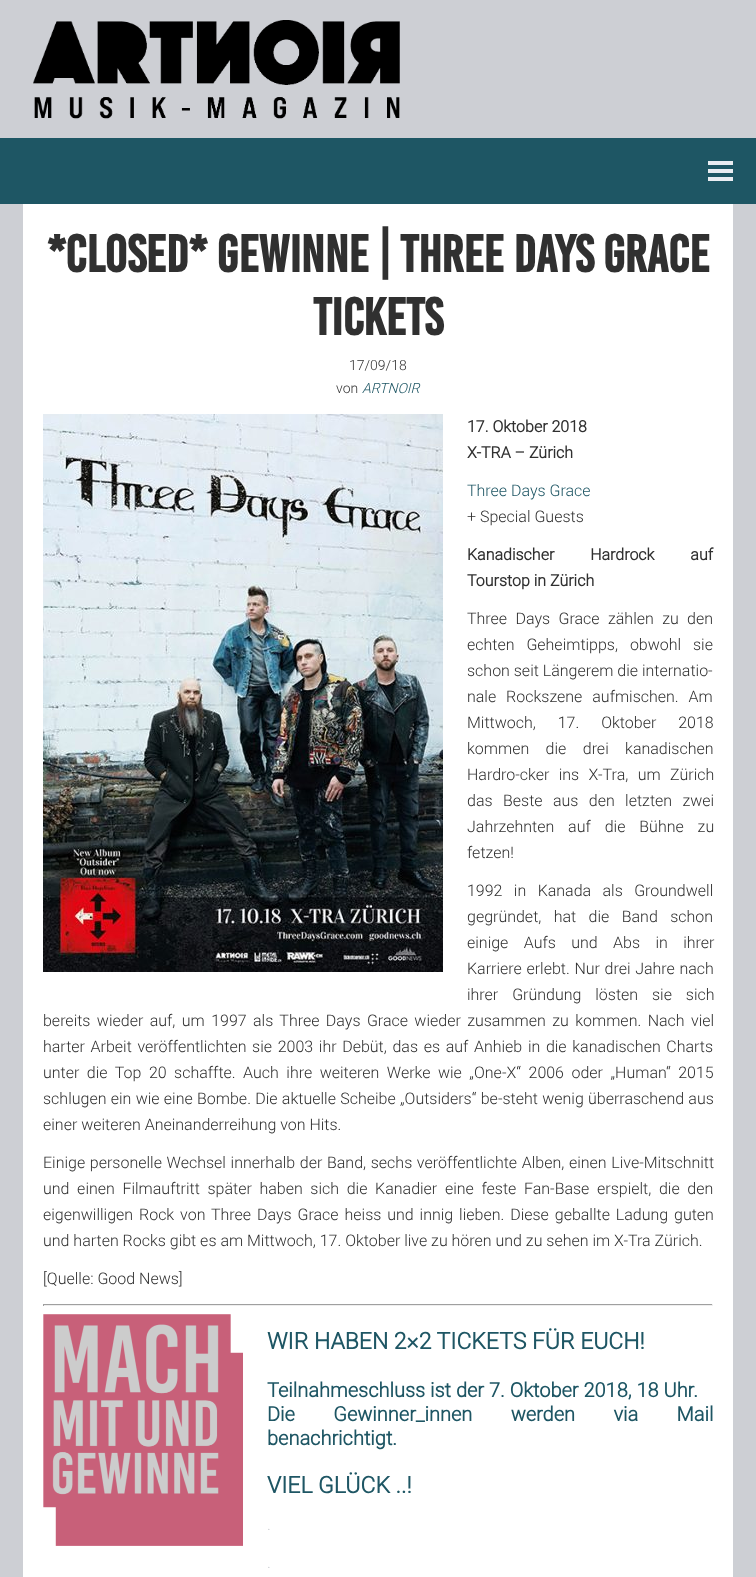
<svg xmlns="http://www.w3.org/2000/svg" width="756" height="1577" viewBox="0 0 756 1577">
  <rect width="100%" height="100%" fill="rgb(205,207,212)"/>
  <image x="33" y="20" width="367" height="99" href="pic1.png"/>
  <rect x="0" y="138" width="756" height="66" fill="rgb(30,86,100)"/>
  <image x="708" y="161" width="25" height="20" href="pic2.png"/>
  <rect x="23" y="204" width="710" height="1373" fill="rgb(255,255,255)"/>
  <g font-family="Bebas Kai" font-size="52" font-weight="bold" fill="rgb(48,48,48)">
    <text x="47" y="272">*closed* Gewinne | THREE DAYS GRACE</text>
    <text x="313" y="335">Tickets</text>
  </g>
  <g font-family="Roboto" font-size="14" font-weight="300" fill="rgb(48,48,48)">
    <text x="349" y="370">17/09/18</text>
    <text x="336" y="393">von</text>
  </g>
  <text x="362" y="393" font-family="Roboto" font-size="14" font-weight="300" font-style="italic" fill="rgb(30,86,100)">ARTNOIR</text>
  <image x="43" y="414" width="400" height="558" href="pic3.png"/>
  <g font-family="Roboto" font-size="16" font-weight="bold" fill="rgb(48,48,48)">
    <text>
      <tspan x="467" y="432">17. Oktober 2018</tspan>
      <tspan x="467" y="458">X-TRA – Zürich</tspan>
    </text>
  </g>
  <text x="467" y="496" font-family="Roboto" font-size="16" font-weight="300" fill="rgb(30,86,100)">Three Days Grace</text>
  <text x="467" y="522" font-family="Roboto" font-size="16" font-weight="300" fill="rgb(48,48,48)">+ Special Guests</text>
  <g font-family="Roboto" font-size="16" font-weight="bold" fill="rgb(48,48,48)">
    <text>
      <tspan x="467" y="560" word-spacing="32">Kanadischer Hardrock auf</tspan>
      <tspan x="467" y="586">Tourstop in Zürich</tspan>
    </text>
  </g>
  <g font-family="Roboto" font-size="16" font-weight="300" fill="rgb(48,48,48)">
    <text>
      <tspan x="467" y="624" word-spacing="4.5">Three Days Grace zählen zu den</tspan>
      <tspan x="467" y="650" word-spacing="8">echten Geheimtipps, obwohl sie</tspan>
      <tspan x="467" y="676">schon seit Längerem die internatio-</tspan>
      <tspan x="467" y="702" word-spacing="6">nale Rockszene aufmischen. Am</tspan>
      <tspan x="467" y="728" word-spacing="18">Mittwoch, 17. Oktober 2018</tspan>
      <tspan x="467" y="754" word-spacing="12.5">kommen die drei kanadischen</tspan>
      <tspan x="467" y="780" word-spacing="5.5">Hardro-cker ins X-Tra, um Zürich</tspan>
      <tspan x="467" y="806" word-spacing="6.5">das Beste aus den letzten zwei</tspan>
      <tspan x="467" y="832" word-spacing="10">Jahrzehnten auf die Bühne zu</tspan>
      <tspan x="467" y="858">fetzen!</tspan>
    </text>
    <text>
      <tspan x="467" y="896" word-spacing="7.5">1992 in Kanada als Groundwell</tspan>
      <tspan x="467" y="922" word-spacing="8.5">gegründet, hat die Band schon</tspan>
      <tspan x="467" y="948" word-spacing="11.5">einige Aufs und Abs in ihrer</tspan>
      <tspan x="467" y="974" word-spacing="0.75">Karriere erlebt. Nur drei Jahre nach</tspan>
      <tspan x="467" y="1000" word-spacing="10">ihrer Gründung lösten sie sich</tspan>
    </text>
    <text>
      <tspan x="43" y="1026" word-spacing="2.5">bereits wieder auf, um 1997 als Three Days Grace wieder zusammen zu kommen. Nach viel</tspan>
      <tspan x="43" y="1052" word-spacing="1.75">harter Arbeit veröffentlichten sie 2003 ihr Debüt, das es auf Anhieb in die kanadischen Charts</tspan>
      <tspan x="43" y="1078" word-spacing="3.6">unter die Top 20 schaffte. Auch ihre weiteren Werke wie „One-X“ 2006 oder „Human“ 2015</tspan>
      <tspan x="43" y="1104" word-spacing="0.4">schlugen ein wie eine Bombe. Die aktuelle Scheibe „Outsiders“ be-steht wenig überraschend aus</tspan>
      <tspan x="43" y="1130">einer weiteren Aneinanderreihung von Hits.</tspan>
    </text>
    <text>
      <tspan x="43" y="1168" word-spacing="0.75">Einige personelle Wechsel innerhalb der Band, sechs veröffentlichte Alben, einen Live-Mitschnitt</tspan>
      <tspan x="43" y="1194" word-spacing="3.75">und einen Filmauftritt später haben sich die Kanadier eine feste Fan-Base erspielt, die den</tspan>
      <tspan x="43" y="1220" word-spacing="2">eigenwilligen Rock von Three Days Grace heiss und innig lieben. Diese geballte Ladung guten</tspan>
      <tspan x="43" y="1246">und harten Rocks gibt es am Mittwoch, 17. Oktober live zu hören und zu sehen im X-Tra Zürich.</tspan>
    </text>
    <text x="43" y="1284">[Quelle: Good News]</text>
  </g>
  <rect x="43" y="1304" width="670" height="1" fill="rgb(159,159,159)"/>
  <rect x="712" y="1304" width="1" height="2" fill="rgb(238,238,238)"/>
  <rect x="43" y="1305" width="670" height="1" fill="rgb(238,238,238)"/>
  <rect x="43" y="1304" width="1" height="2" fill="rgb(159,159,159)"/>
  <image x="43" y="1314" width="200" height="232" href="pic4.png"/>
  <text x="267" y="1349" font-family="Roboto" font-size="23" font-weight="bold" fill="rgb(30,86,100)">WIR HABEN 2×2 TICKETS FÜR EUCH!</text>
  <g font-family="Roboto" font-size="20" font-weight="bold" fill="rgb(30,86,100)">
    <text>
      <tspan x="267" y="1397">Teilnahmeschluss ist der 7. Oktober 2018, 18 Uhr.</tspan>
      <tspan x="267" y="1421" word-spacing="33.5">Die Gewinner_innen werden via Mail</tspan>
      <tspan x="267" y="1445">benachrichtigt.</tspan>
    </text>
  </g>
  <text x="267" y="1493" font-family="Roboto" font-size="23" font-weight="bold" fill="rgb(30,86,100)">VIEL GLÜCK ..!</text>
  <g font-family="Roboto" font-size="16" font-weight="300" fill="rgb(205,207,212)">
    <text x="267" y="1530">.</text>
    <text x="267" y="1568">.</text>
  </g>
</svg>
